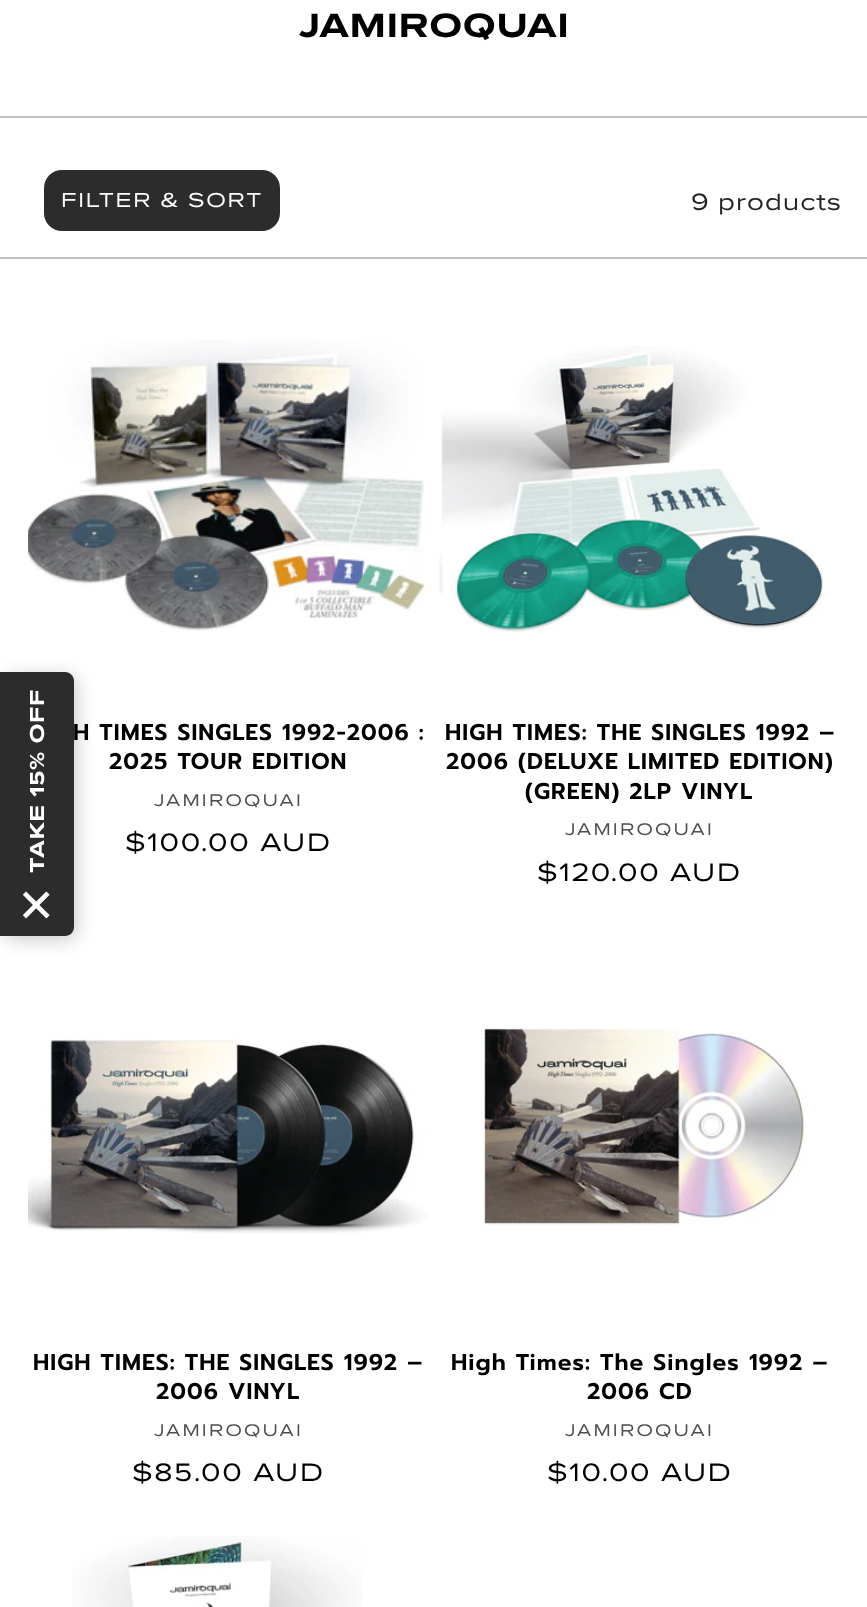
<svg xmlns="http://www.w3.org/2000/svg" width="867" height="1607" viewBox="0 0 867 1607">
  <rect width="100%" height="100%" fill="rgb(255,255,255)"/>
  <rect x="0" y="116" width="867" height="2" fill="rgb(192,192,192)"/>
  <text x="299" y="37" font-family="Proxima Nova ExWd" font-size="35" font-weight="bold" letter-spacing="1.05" fill="rgb(0,0,0)">JAMIROQUAI</text>
  <rect x="44" y="170" width="236" height="61" rx="18" fill="rgb(44,44,44)"/>
  <text x="61" y="207" font-family="Proxima Nova ExWd" font-size="21" letter-spacing="1.75" fill="rgb(255,255,255)">FILTER &amp; SORT</text>
  <text x="691" y="210" font-family="Proxima Nova ExWd" font-size="24.5" letter-spacing="1.05" fill="rgb(33,37,41)">9 products</text>
  <rect x="0" y="257" width="867" height="2" fill="rgb(192,192,192)"/>
  <image x="28" y="340" width="397" height="291" href="pic1.png"/>
  <g font-family="Prompt" font-size="22.75" font-weight="600" letter-spacing="1.05" fill="rgb(0,0,0)">
    <text x="73" y="740">H TIMES SINGLES 1992-2006 :</text>
    <text x="109" y="769">2025 TOUR EDITION</text>
  </g>
  <text x="154" y="806" font-family="Proxima Nova ExWd" font-size="17.5" letter-spacing="2.25" fill="rgb(77,77,77)">JAMIROQUAI</text>
  <text x="125" y="851" font-family="Proxima Nova ExWd" font-size="26.25" letter-spacing="1.75" fill="rgb(0,0,0)">$100.00 AUD</text>
  <image x="439" y="346" width="384" height="288" href="pic2.png"/>
  <g font-family="Prompt" font-size="22.75" font-weight="600" letter-spacing="1.05" fill="rgb(0,0,0)">
    <text x="445" y="740">HIGH TIMES: THE SINGLES 1992 –</text>
    <text x="446" y="769">2006 (DELUXE LIMITED EDITION)</text>
    <text x="525" y="799">(GREEN) 2LP VINYL</text>
  </g>
  <text x="565" y="835" font-family="Proxima Nova ExWd" font-size="17.5" letter-spacing="2.25" fill="rgb(77,77,77)">JAMIROQUAI</text>
  <text x="537" y="881" font-family="Proxima Nova ExWd" font-size="26.25" letter-spacing="1.75" fill="rgb(0,0,0)">$120.00 AUD</text>
  <image x="28" y="1038" width="400" height="196" href="pic3.png"/>
  <g font-family="Prompt" font-size="22.75" font-weight="600" letter-spacing="1.05" fill="rgb(0,0,0)">
    <text x="33" y="1370">HIGH TIMES: THE SINGLES 1992 –</text>
    <text x="156" y="1399">2006 VINYL</text>
  </g>
  <text x="154" y="1436" font-family="Proxima Nova ExWd" font-size="17.5" letter-spacing="2.25" fill="rgb(77,77,77)">JAMIROQUAI</text>
  <text x="132" y="1481" font-family="Proxima Nova ExWd" font-size="26.25" letter-spacing="1.75" fill="rgb(0,0,0)">$85.00 AUD</text>
  <image x="483" y="1028" width="322" height="198" href="pic4.png"/>
  <g font-family="Prompt" font-size="22.75" font-weight="600" letter-spacing="1.05" fill="rgb(0,0,0)">
    <text x="451" y="1370">High Times: The Singles 1992 –</text>
    <text x="587" y="1399">2006 CD</text>
  </g>
  <text x="565" y="1436" font-family="Proxima Nova ExWd" font-size="17.5" letter-spacing="2.25" fill="rgb(77,77,77)">JAMIROQUAI</text>
  <text x="547" y="1481" font-family="Proxima Nova ExWd" font-size="26.25" letter-spacing="1.75" fill="rgb(0,0,0)">$10.00 AUD</text>
  <image x="72" y="1536" width="291" height="71" href="pic5.png"/>
  <rect x="4" y="676" width="73" height="264" rx="9" fill="rgba(0,0,0,0.2)" filter="blur(9px)"/>
  <path d="M0 672H65C70 672 74 676 74 681V927C74 932 70 936 65 936H0Z" fill="rgb(44,44,44)"/>
  <text x="44" y="873" transform="rotate(-90 44 873)" font-family="Proxima Nova ExWd" font-size="21" font-weight="bold" letter-spacing="1.05" fill="rgb(255,255,255)">TAKE 15% OFF</text>
  <image x="23" y="891" width="27" height="28" href="pic6.png"/>
</svg>
